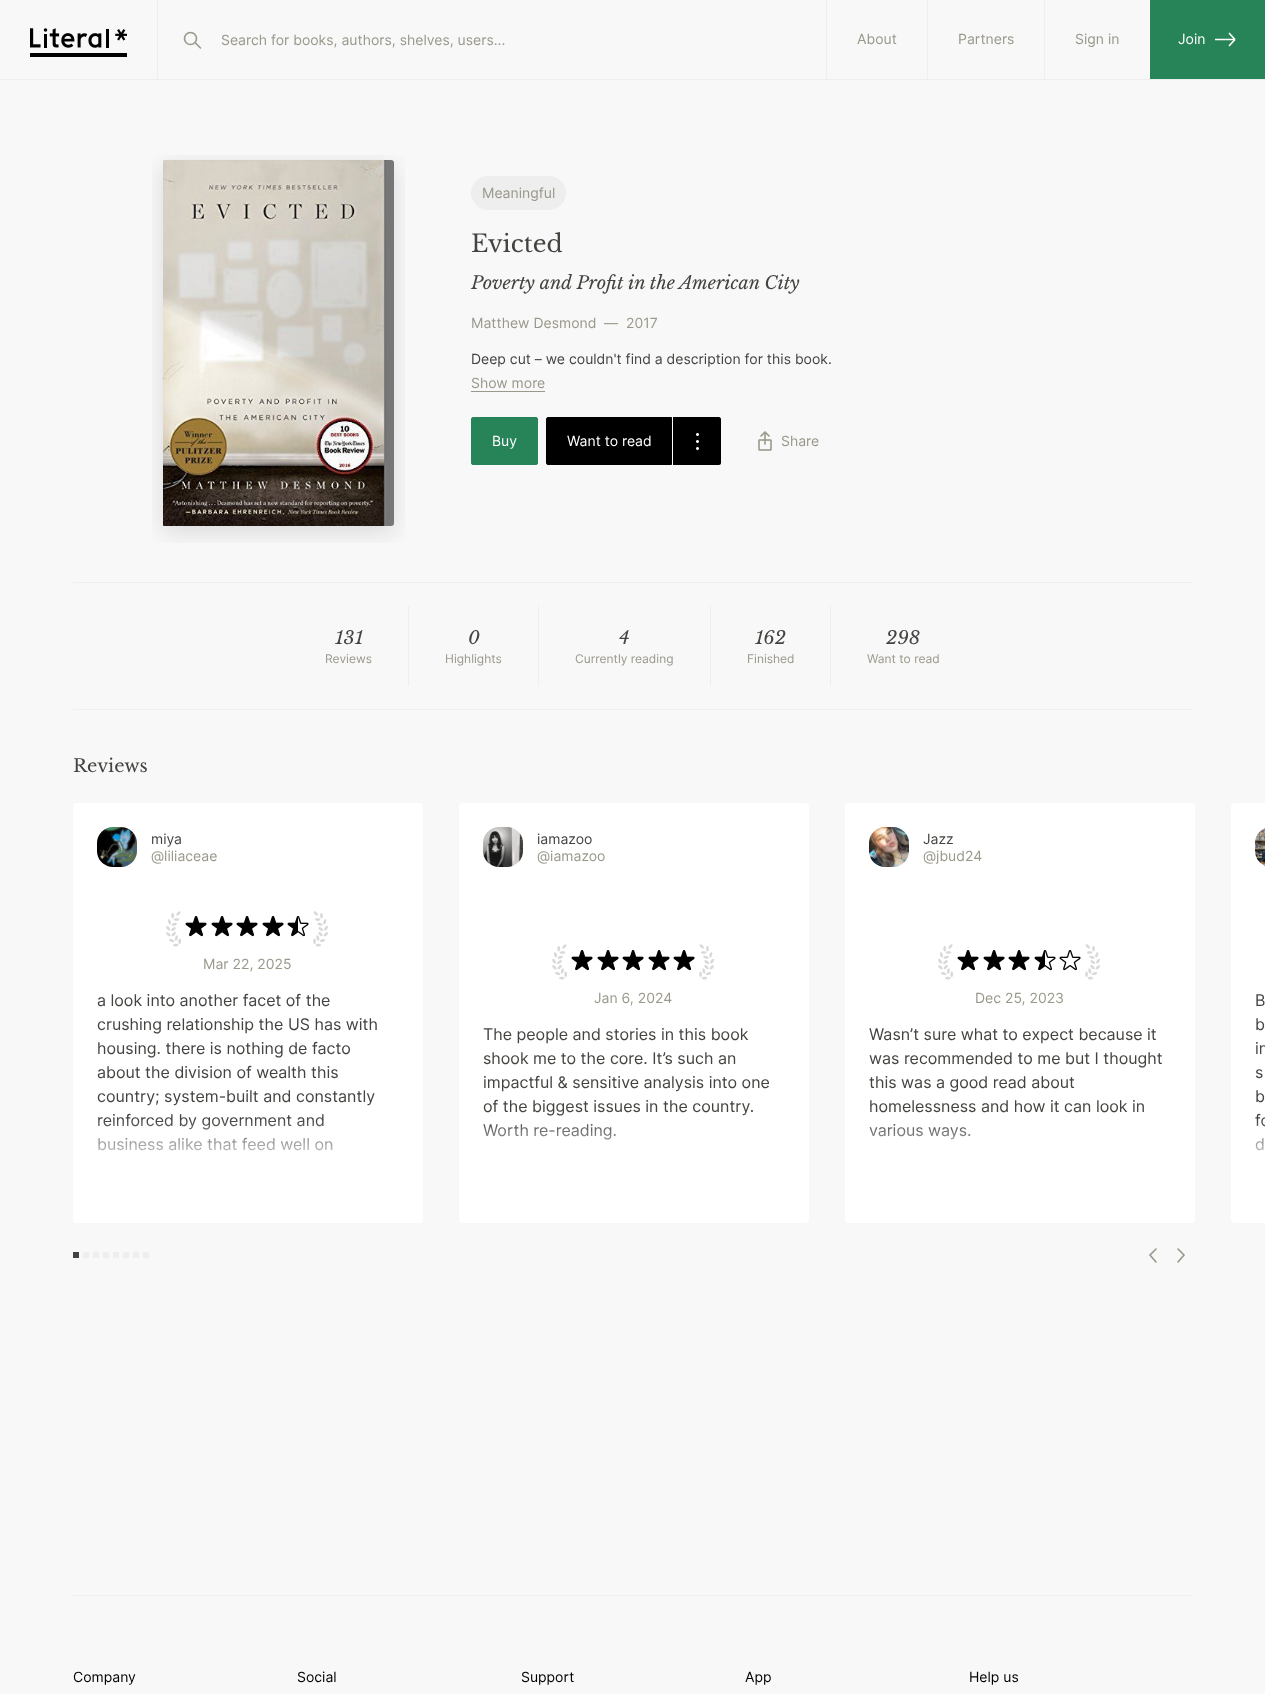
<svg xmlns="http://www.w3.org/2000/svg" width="1265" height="1694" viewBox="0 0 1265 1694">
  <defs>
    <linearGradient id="g1" gradientUnits="userSpaceOnUse" x1="248" y1="1119" x2="248" y2="1199"><stop offset="0" stop-color="rgb(255,255,255)" stop-opacity="0"/><stop offset="0.5" stop-color="rgb(255,255,255)" stop-opacity="0.8"/><stop offset="1" stop-color="rgb(255,255,255)"/></linearGradient>
    <linearGradient id="g2" gradientUnits="userSpaceOnUse" x1="634" y1="1119" x2="634" y2="1199"><stop offset="0" stop-color="rgb(255,255,255)" stop-opacity="0"/><stop offset="0.5" stop-color="rgb(255,255,255)" stop-opacity="0.8"/><stop offset="1" stop-color="rgb(255,255,255)"/></linearGradient>
    <linearGradient id="g3" gradientUnits="userSpaceOnUse" x1="1020" y1="1119" x2="1020" y2="1199"><stop offset="0" stop-color="rgb(255,255,255)" stop-opacity="0"/><stop offset="0.5" stop-color="rgb(255,255,255)" stop-opacity="0.8"/><stop offset="1" stop-color="rgb(255,255,255)"/></linearGradient>
    <linearGradient id="g4" gradientUnits="userSpaceOnUse" x1="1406" y1="1119" x2="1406" y2="1199"><stop offset="0" stop-color="rgb(255,255,255)" stop-opacity="0"/><stop offset="0.5" stop-color="rgb(255,255,255)" stop-opacity="0.8"/><stop offset="1" stop-color="rgb(255,255,255)"/></linearGradient>
  </defs>
  <rect width="100%" height="100%" fill="rgb(248,248,248)"/>
  <rect x="0" y="79" width="1265" height="1" fill="rgb(238,238,238)"/>
  <rect x="157" y="0" width="1" height="79" fill="rgb(238,238,238)"/>
  <image x="30" y="28" width="97" height="29" href="pic1.png"/>
  <circle cx="190.5" cy="38.5" r="6" fill="none" stroke="rgb(154,152,139)" stroke-width="1.6"/>
  <path d="M195.5 43L200.5 48" fill="none" stroke="rgb(154,152,139)" stroke-width="1.6" stroke-linecap="round"/>
  <text x="221" y="45" font-family="Inter" font-size="14" fill="rgb(154,152,139)">Search for books, authors, shelves, users...</text>
  <rect x="826" y="0" width="1" height="79" fill="rgb(238,238,238)"/>
  <text x="857" y="44" font-family="Inter" font-size="14" fill="rgb(154,152,139)">About</text>
  <rect x="927" y="0" width="1" height="79" fill="rgb(238,238,238)"/>
  <text x="958" y="44" font-family="Inter" font-size="14" fill="rgb(154,152,139)">Partners</text>
  <rect x="1044" y="0" width="1" height="79" fill="rgb(238,238,238)"/>
  <text x="1075" y="44" font-family="Inter" font-size="14" fill="rgb(154,152,139)">Sign in</text>
  <rect x="1150" y="0" width="115" height="79" fill="rgb(39,132,88)"/>
  <text x="1178" y="44" font-family="Inter" font-size="14" fill="rgb(255,255,255)">Join</text>
  <path d="M1215 39.5H1235M1235 39.5L1229 46M1235 39.5L1229 33" fill="none" stroke="rgb(255,255,255)" stroke-width="1.6"/>
  <image x="152" y="155" width="253" height="388" href="pic2.png"/>
  <rect x="471.5" y="176.5" width="94" height="33" rx="16.5" fill="rgb(238,238,238)" stroke="rgb(238,238,238)"/>
  <text x="482" y="198" font-family="Inter" font-size="14" fill="rgb(154,152,139)">Meaningful</text>
  <text x="471" y="252" font-family="Libre Baskerville" font-size="24" fill="rgb(68,67,64)">Evicted</text>
  <text x="471" y="289" font-family="Libre Baskerville" font-size="18" font-style="italic" fill="rgb(68,67,64)">Poverty and Profit in the American City</text>
  <g font-family="Inter" font-size="14" fill="rgb(154,152,139)">
    <text x="471" y="328">Matthew Desmond</text>
    <text x="604" y="328">—</text>
    <text x="626" y="328">2017</text>
  </g>
  <text x="471" y="364" font-family="Inter" font-size="14" fill="rgb(68,67,64)">Deep cut – we couldn't find a description for this book.</text>
  <rect x="471" y="391" width="74" height="1" fill="rgb(154,152,139)"/>
  <text x="471" y="388" font-family="Inter" font-size="14" fill="rgb(154,152,139)">Show more</text>
  <rect x="471.5" y="417.5" width="66" height="47" rx="1.5" fill="rgb(39,132,88)" stroke="rgb(39,132,88)"/>
  <text x="492" y="446" font-family="Inter" font-size="14" fill="rgb(255,255,255)">Buy</text>
  <path d="M548 417.5H671.5V464.5H548C547 464.5 546.5 464 546.5 463V419C546.5 418 547 417.5 548 417.5Z" fill="rgb(0,0,0)" stroke="rgb(0,0,0)"/>
  <text x="567" y="446" font-family="Inter" font-size="14" fill="rgb(255,255,255)">Want to read</text>
  <path d="M672 417H719C720 417 721 418 721 419V463C721 464 720 465 719 465H672Z" fill="rgb(0,0,0)"/>
  <rect x="672" y="417" width="1" height="48" fill="rgb(255,255,255)"/>
  <image x="696" y="433" width="3" height="17" href="pic3.png"/>
  <image x="758" y="431" width="14" height="20" href="pic4.png"/>
  <text x="781" y="446" font-family="Inter" font-size="14" fill="rgb(154,152,139)">Share</text>
  <rect x="73" y="582" width="1120" height="1" fill="rgb(238,238,238)"/>
  <rect x="73" y="709" width="1120" height="1" fill="rgb(238,238,238)"/>
  <text x="335" y="644" font-family="Libre Baskerville" font-size="18" font-style="italic" fill="rgb(68,67,64)">131</text>
  <text x="325" y="663" font-family="Inter" font-size="12" fill="rgb(154,152,139)">Reviews</text>
  <rect x="408" y="606" width="1" height="80" fill="rgb(238,238,238)"/>
  <text x="468" y="644" font-family="Libre Baskerville" font-size="18" font-style="italic" fill="rgb(68,67,64)">0</text>
  <text x="445" y="663" font-family="Inter" font-size="12" fill="rgb(154,152,139)">Highlights</text>
  <rect x="538" y="606" width="1" height="80" fill="rgb(238,238,238)"/>
  <text x="619" y="644" font-family="Libre Baskerville" font-size="18" font-style="italic" fill="rgb(68,67,64)">4</text>
  <text x="575" y="663" font-family="Inter" font-size="12" fill="rgb(154,152,139)">Currently reading</text>
  <rect x="710" y="606" width="1" height="80" fill="rgb(238,238,238)"/>
  <text x="755" y="644" font-family="Libre Baskerville" font-size="18" font-style="italic" fill="rgb(68,67,64)">162</text>
  <text x="747" y="663" font-family="Inter" font-size="12" fill="rgb(154,152,139)">Finished</text>
  <rect x="830" y="606" width="1" height="80" fill="rgb(238,238,238)"/>
  <text x="886" y="644" font-family="Libre Baskerville" font-size="18" font-style="italic" fill="rgb(68,67,64)">298</text>
  <text x="867" y="663" font-family="Inter" font-size="12" fill="rgb(154,152,139)">Want to read</text>
  <text x="73" y="772" font-family="Libre Baskerville" font-size="18" fill="rgb(68,67,64)">Reviews</text>
  <rect x="73" y="803" width="350" height="420" rx="4" fill="rgb(255,255,255)"/>
  <image x="97" y="827" width="40" height="40" href="pic5.png"/>
  <text x="151" y="844" font-family="Inter" font-size="14" fill="rgb(68,67,64)">miya</text>
  <text x="151" y="861" font-family="Inter" font-size="14" fill="rgb(154,152,139)">@liliaceae</text>
  <image x="166" y="911" width="15" height="36" href="pic6.png"/>
  <image x="185" y="916" width="22" height="21" href="pic7.png"/>
  <image x="211" y="916" width="22" height="21" href="pic7.png"/>
  <image x="236" y="916" width="22" height="21" href="pic7.png"/>
  <image x="262" y="916" width="22" height="21" href="pic7.png"/>
  <image x="287" y="916" width="22" height="21" href="pic8.png"/>
  <image x="313" y="911" width="15" height="36" href="pic9.png"/>
  <text x="203" y="969" font-family="Inter" font-size="14" fill="rgb(154,152,139)">Mar 22, 2025</text>
  <g font-family="Inter" font-size="16" fill="rgb(68,67,64)">
    <text>
      <tspan x="97" y="1006">a look into another facet of the</tspan>
      <tspan x="97" y="1030">crushing relationship the US has with</tspan>
      <tspan x="97" y="1054">housing. there is nothing de facto</tspan>
      <tspan x="97" y="1078">about the division of wealth this</tspan>
      <tspan x="97" y="1102">country; system-built and constantly</tspan>
      <tspan x="97" y="1126">reinforced by government and</tspan>
      <tspan x="97" y="1150">business alike that feed well on</tspan>
    </text>
  </g>
  <rect x="97" y="1120" width="235" height="31" fill="url(#g1)"/>
  <rect x="459" y="803" width="350" height="420" rx="4" fill="rgb(255,255,255)"/>
  <image x="483" y="827" width="40" height="40" href="pic10.png"/>
  <text x="537" y="844" font-family="Inter" font-size="14" fill="rgb(68,67,64)">iamazoo</text>
  <text x="537" y="861" font-family="Inter" font-size="14" fill="rgb(154,152,139)">@iamazoo</text>
  <image x="552" y="944" width="15" height="36" href="pic6.png"/>
  <image x="571" y="950" width="22" height="21" href="pic7.png"/>
  <image x="597" y="950" width="22" height="21" href="pic7.png"/>
  <image x="622" y="950" width="22" height="21" href="pic7.png"/>
  <image x="648" y="950" width="22" height="21" href="pic7.png"/>
  <image x="673" y="950" width="22" height="21" href="pic7.png"/>
  <image x="699" y="944" width="15" height="36" href="pic9.png"/>
  <text x="594" y="1003" font-family="Inter" font-size="14" fill="rgb(154,152,139)">Jan 6, 2024</text>
  <g font-family="Inter" font-size="16" fill="rgb(68,67,64)">
    <text>
      <tspan x="483" y="1040">The people and stories in this book</tspan>
      <tspan x="483" y="1064">shook me to the core. It’s such an</tspan>
      <tspan x="483" y="1088">impactful &amp; sensitive analysis into one</tspan>
      <tspan x="483" y="1112">of the biggest issues in the country.</tspan>
      <tspan x="483" y="1136">Worth re-reading.</tspan>
    </text>
  </g>
  <rect x="483" y="1124" width="133" height="16" fill="url(#g2)"/>
  <rect x="845" y="803" width="350" height="420" rx="4" fill="rgb(255,255,255)"/>
  <image x="869" y="827" width="40" height="40" href="pic11.png"/>
  <text x="923" y="844" font-family="Inter" font-size="14" fill="rgb(68,67,64)">Jazz</text>
  <text x="923" y="861" font-family="Inter" font-size="14" fill="rgb(154,152,139)">@jbud24</text>
  <image x="938" y="944" width="15" height="36" href="pic6.png"/>
  <image x="957" y="950" width="22" height="21" href="pic7.png"/>
  <image x="983" y="950" width="22" height="21" href="pic7.png"/>
  <image x="1008" y="950" width="22" height="21" href="pic7.png"/>
  <image x="1034" y="950" width="22" height="21" href="pic8.png"/>
  <image x="1059" y="950" width="22" height="21" href="pic12.png"/>
  <image x="1085" y="944" width="15" height="36" href="pic9.png"/>
  <text x="975" y="1003" font-family="Inter" font-size="14" fill="rgb(154,152,139)">Dec 25, 2023</text>
  <g font-family="Inter" font-size="16" fill="rgb(68,67,64)">
    <text>
      <tspan x="869" y="1040">Wasn’t sure what to expect because it</tspan>
      <tspan x="869" y="1064">was recommended to me but I thought</tspan>
      <tspan x="869" y="1088">this was a good read about</tspan>
      <tspan x="869" y="1112">homelessness and how it can look in</tspan>
      <tspan x="869" y="1136">various ways.</tspan>
    </text>
  </g>
  <rect x="869" y="1124" width="101" height="16" fill="url(#g3)"/>
  <path d="M1235 803H1265V1223H1235C1233 1223 1231 1221 1231 1219V807C1231 805 1233 803 1235 803Z" fill="rgb(255,255,255)"/>
  <image x="1255" y="828" width="10" height="38" href="pic13.png"/>
  <g font-family="Inter" font-size="16" fill="rgb(68,67,64)">
    <text>
      <tspan x="1255" y="1006">B</tspan>
      <tspan x="1255" y="1030">b</tspan>
      <tspan x="1255" y="1054">in</tspan>
      <tspan x="1255" y="1078">s</tspan>
      <tspan x="1255" y="1102">b</tspan>
      <tspan x="1255" y="1126">fo</tspan>
      <tspan x="1255" y="1150">d</tspan>
    </text>
  </g>
  <rect x="1255" y="1120" width="10" height="31" fill="url(#g4)"/>
  <rect x="73" y="1252" width="6" height="6" fill="rgb(68,67,64)"/>
  <rect x="83" y="1252" width="6" height="6" fill="rgb(238,238,238)"/>
  <rect x="93" y="1252" width="6" height="6" fill="rgb(238,238,238)"/>
  <rect x="103" y="1252" width="6" height="6" fill="rgb(238,238,238)"/>
  <rect x="113" y="1252" width="6" height="6" fill="rgb(238,238,238)"/>
  <rect x="123" y="1252" width="6" height="6" fill="rgb(238,238,238)"/>
  <rect x="133" y="1252" width="6" height="6" fill="rgb(238,238,238)"/>
  <rect x="143" y="1252" width="6" height="6" fill="rgb(238,238,238)"/>
  <path d="M1156 1262L1150 1255L1156 1249M1178 1262L1184 1255L1178 1249" fill="none" stroke="rgb(154,152,139)" stroke-width="1.6" stroke-linecap="round"/>
  <rect x="73" y="1595" width="1120" height="1" fill="rgb(238,238,238)"/>
  <g font-family="Inter" font-size="14" fill="rgb(0,0,0)">
    <text x="73" y="1682">Company</text>
    <text x="297" y="1682">Social</text>
    <text x="521" y="1682">Support</text>
    <text x="745" y="1682">App</text>
    <text x="969" y="1682">Help us</text>
  </g>
</svg>
